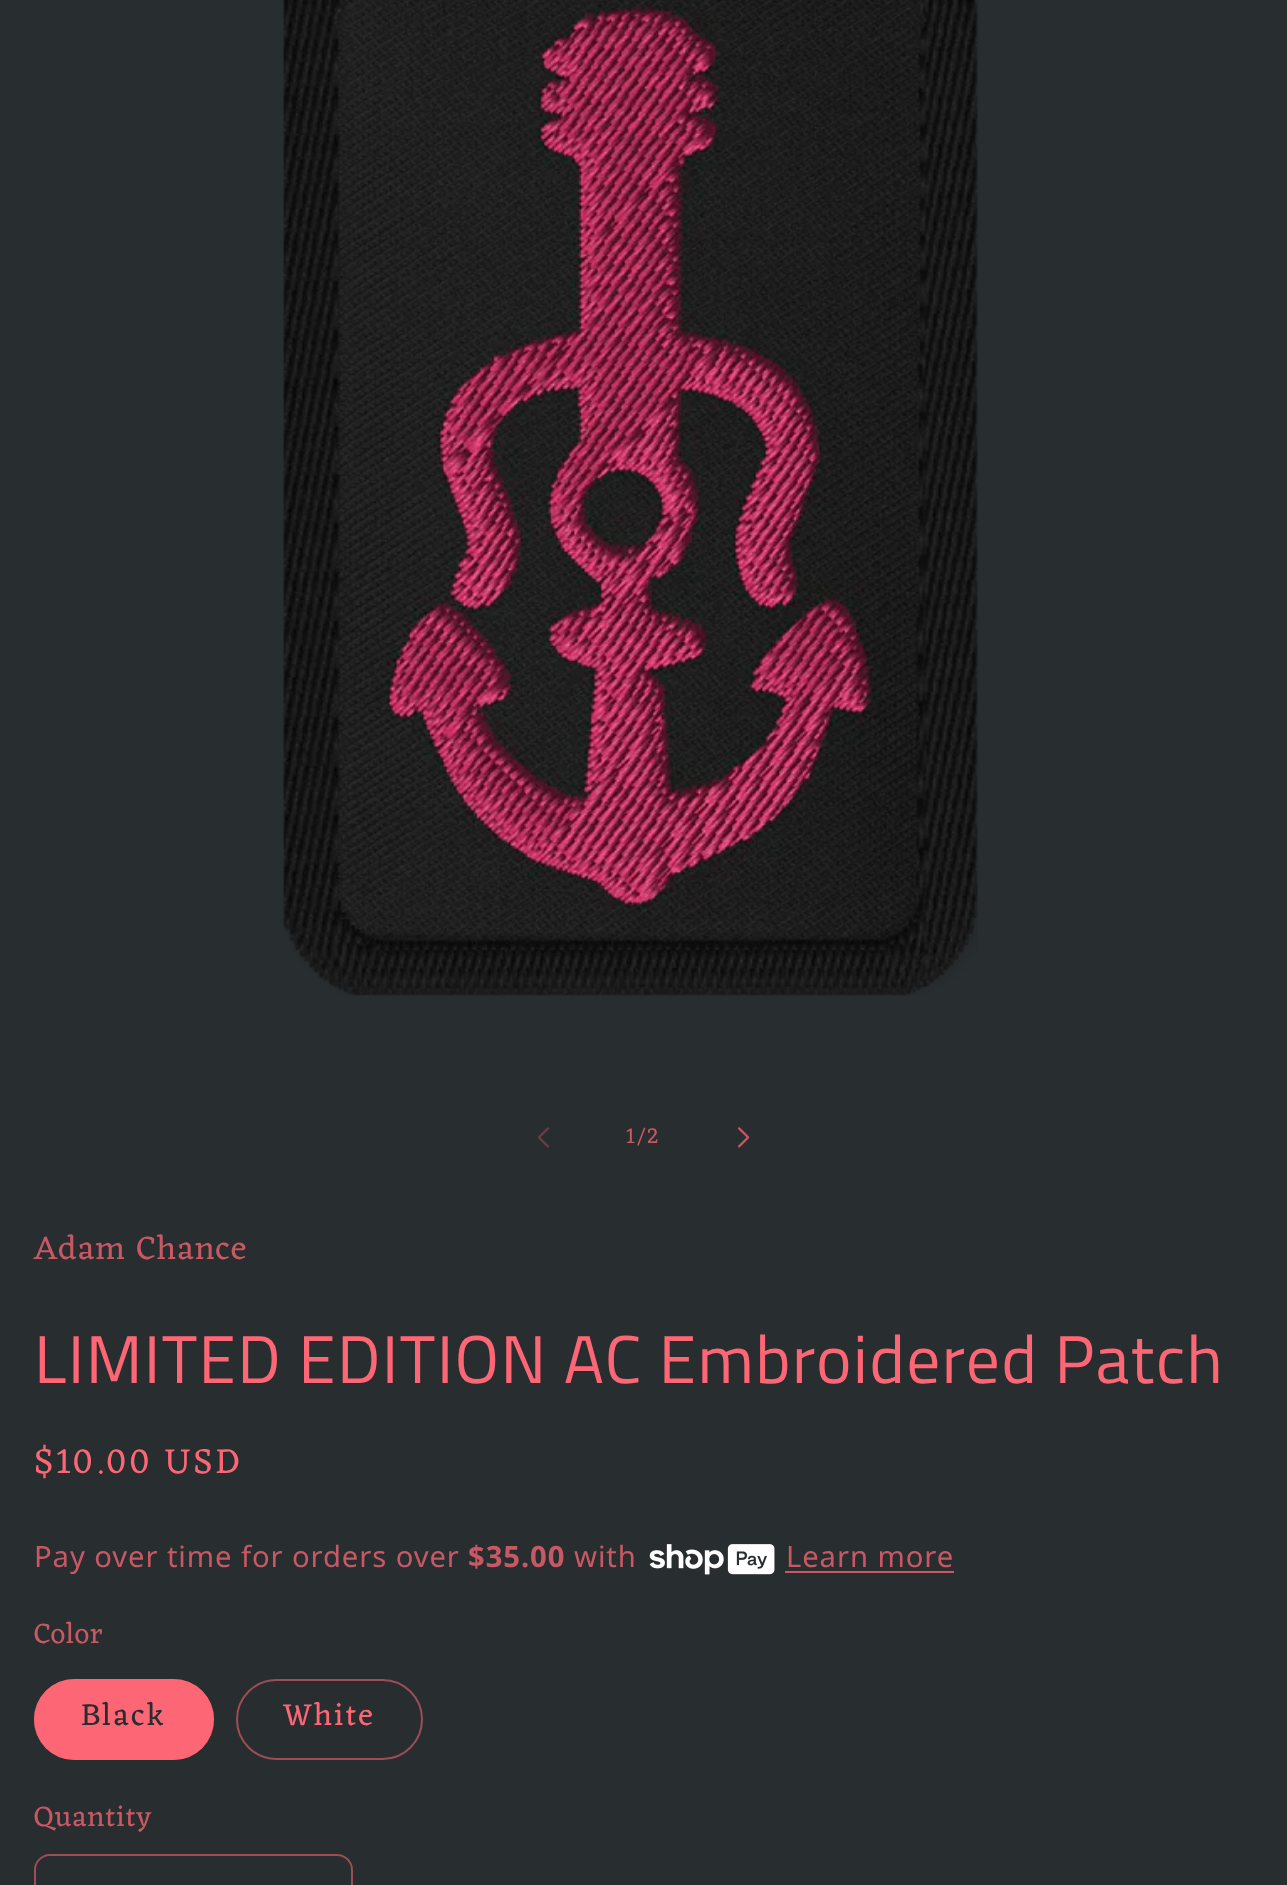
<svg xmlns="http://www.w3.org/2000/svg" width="1287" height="1885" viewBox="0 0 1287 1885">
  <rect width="100%" height="100%" fill="rgb(40,45,48)"/>
  <image x="283" y="0" width="695" height="996" href="pic1.png"/>
  <image x="538" y="1127" width="11" height="21" href="pic2.png"/>
  <text x="626" y="1143" font-family="Eczar" font-size="22" letter-spacing="1.5" fill="rgb(200,89,100)">1/2</text>
  <image x="738" y="1127" width="12" height="21" href="pic3.png"/>
  <text x="34" y="1259" font-family="Eczar" font-size="33.75" letter-spacing="1.35" fill="rgb(200,89,100)">Adam Chance</text>
  <text x="34" y="1383" font-family="Titillium Web" font-size="67.5" letter-spacing="1.35" fill="rgb(253,103,117)">LIMITED EDITION AC Embroidered Patch</text>
  <text x="34" y="1473" font-family="Eczar" font-size="36" letter-spacing="3" fill="rgb(253,103,117)">$10.00 USD</text>
  <text x="34" y="1567" font-family="Noto Sans" font-size="29.25" letter-spacing="0.9" fill="rgb(200,89,100)">Pay over time for orders over</text>
  <text x="468" y="1567" font-family="Noto Sans" font-size="29.25" font-weight="bold" letter-spacing="0.9" fill="rgb(200,89,100)">$35.00</text>
  <text x="574" y="1567" font-family="Noto Sans" font-size="29.25" letter-spacing="0.9" fill="rgb(200,89,100)">with</text>
  <image x="649" y="1544" width="126" height="31" href="pic4.png"/>
  <text x="786" y="1567" font-family="Noto Sans" font-size="29.25" letter-spacing="0.9" fill="rgb(200,89,100)">Learn more</text>
  <rect x="785" y="1571" width="169" height="2" fill="rgb(200,89,100)"/>
  <text x="34" y="1643" font-family="Eczar" font-size="29.25" letter-spacing="0.9" fill="rgb(200,89,100)">Color</text>
  <rect x="34" y="1679" width="180" height="81" rx="40.5" fill="rgb(253,103,117)"/>
  <rect x="35" y="1680" width="178" height="79" rx="39.5" fill="none" stroke="rgba(253,103,117,0.55)" stroke-width="2"/>
  <text x="81" y="1725" font-family="Eczar" font-size="31.5" letter-spacing="2.25" fill="rgb(40,45,48)">Black</text>
  <rect x="237" y="1680" width="185" height="79" rx="39.5" fill="none" stroke="rgb(157,77,86)" stroke-width="2"/>
  <text x="283" y="1725" font-family="Eczar" font-size="31.5" letter-spacing="2.25" fill="rgb(253,103,117)">White</text>
  <text x="34" y="1826" font-family="Eczar" font-size="29.25" letter-spacing="0.9" fill="rgb(200,89,100)">Quantity</text>
  <rect x="35" y="1855" width="317" height="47" rx="15" fill="none" stroke="rgb(157,77,86)" stroke-width="2"/>
</svg>
